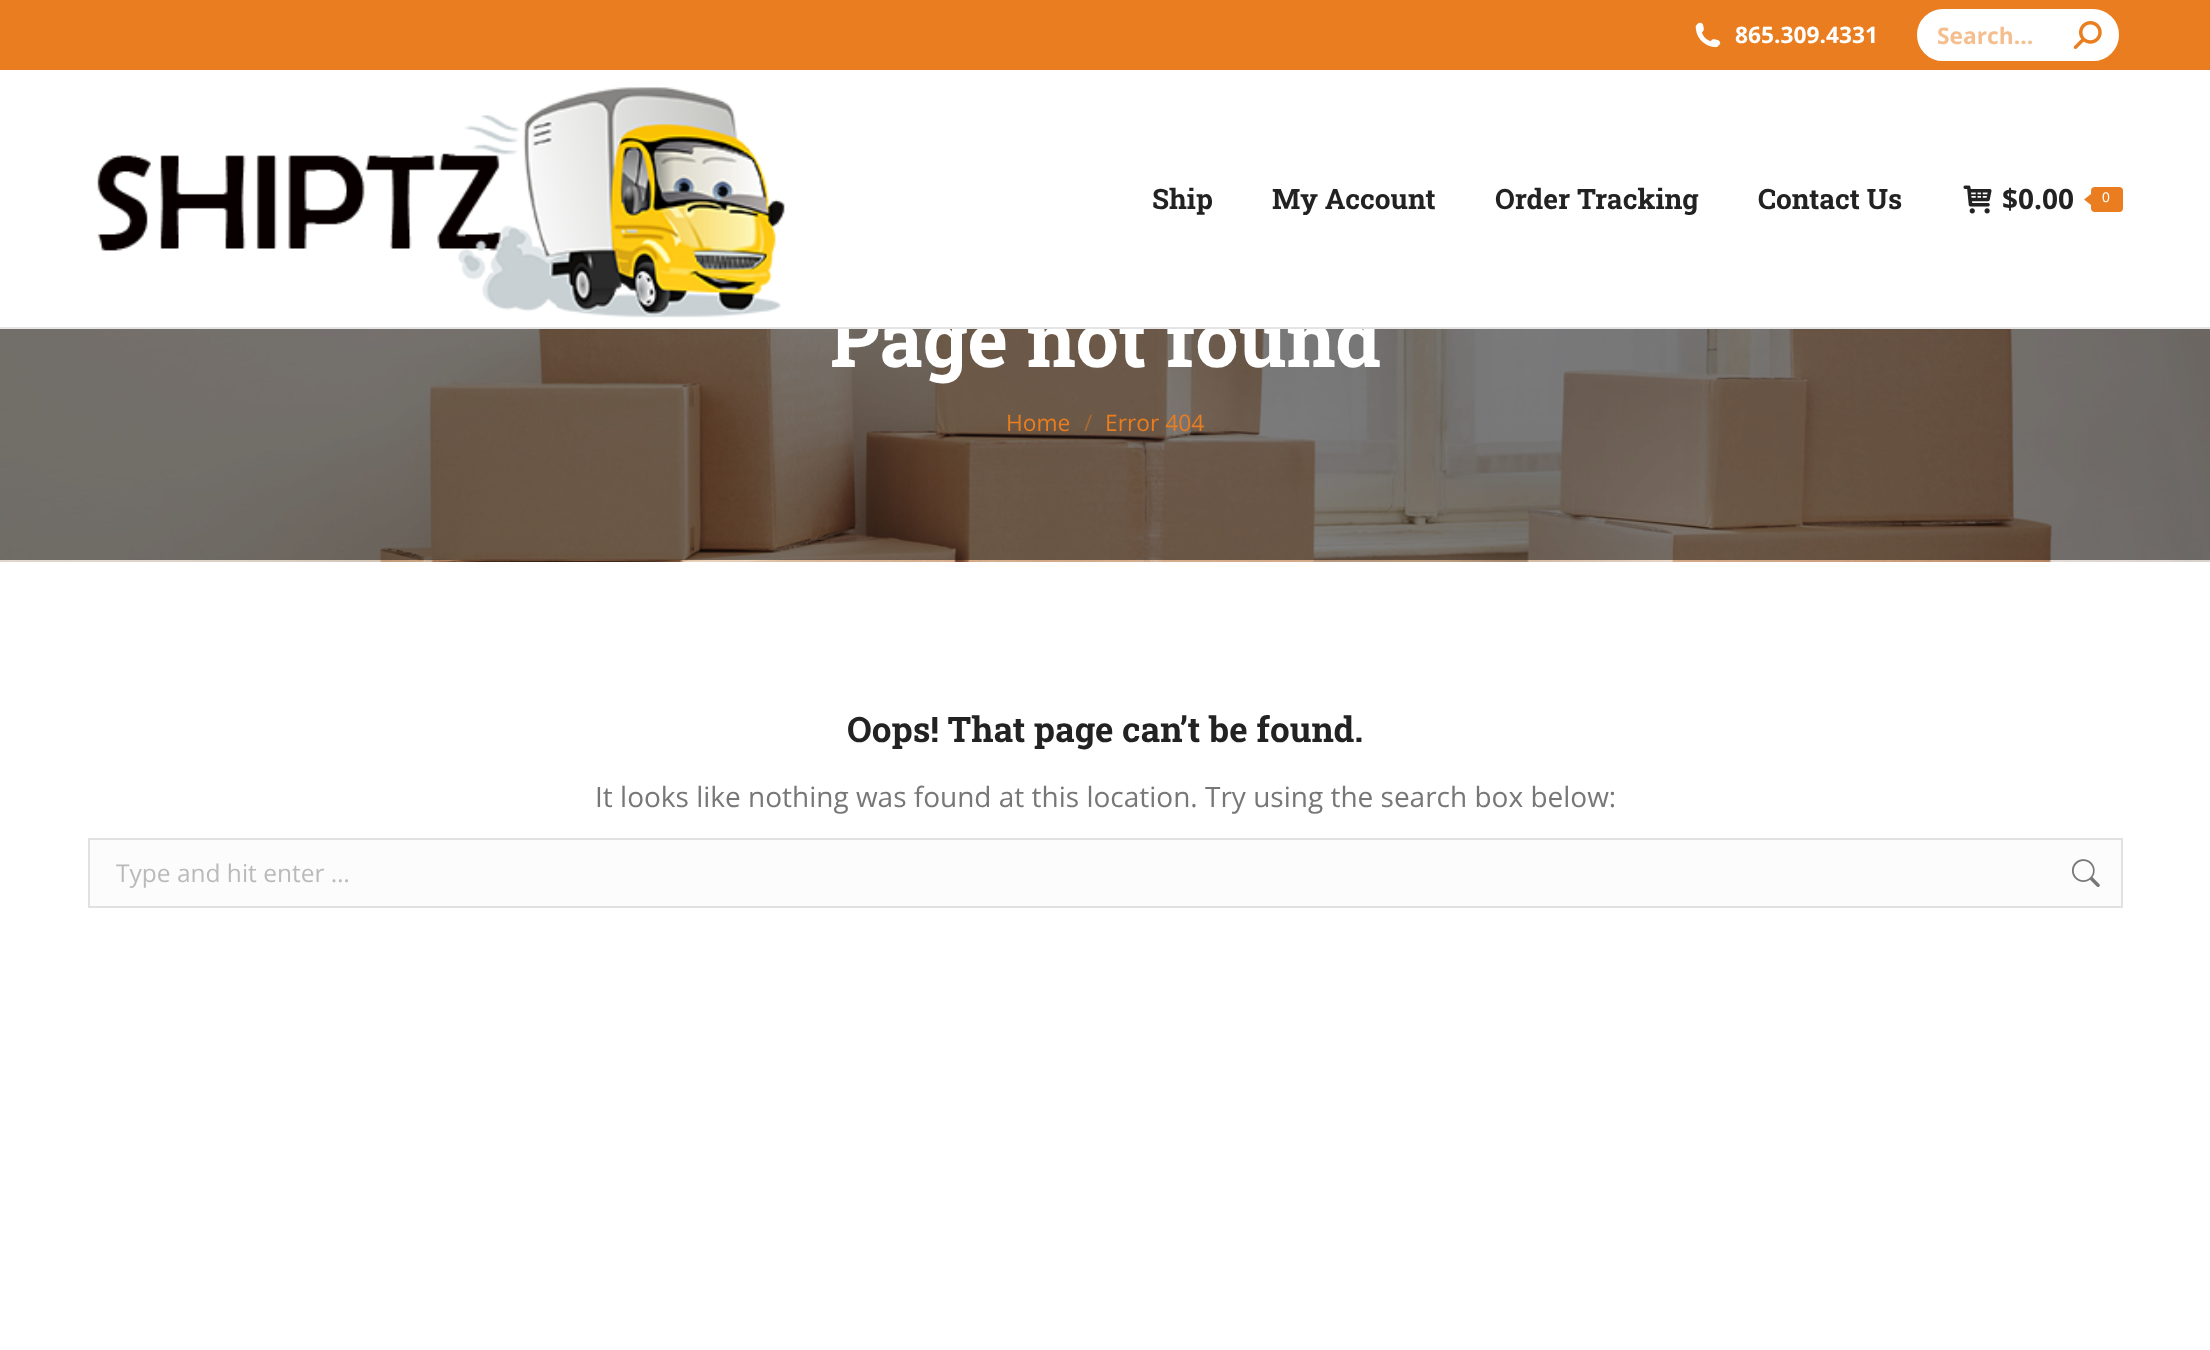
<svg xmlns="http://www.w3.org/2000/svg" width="2210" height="1350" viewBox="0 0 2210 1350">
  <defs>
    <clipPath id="clip1"><rect x="116" y="856" width="1953" height="33"/></clipPath>
  </defs>
  <rect width="100%" height="100%" fill="rgb(255,255,255)"/>
  <image x="0" y="329" width="2210" height="233" href="pic5.png"/>
  <text x="830" y="367" font-family="Roboto Slab" font-size="77" font-weight="bold" fill="rgb(255,255,255)">Page not found</text>
  <rect x="0" y="327" width="2210" height="2" fill="rgb(228,228,228)"/>
  <rect x="0" y="0" width="2210" height="70" fill="rgb(233,125,31)"/>
  <image x="1695" y="22" width="26" height="26" href="pic1.png"/>
  <text x="1735" y="43" font-family="Open Sans" font-size="22.75" font-weight="bold" fill="rgb(255,255,255)">865.309.4331</text>
  <rect x="1915" y="7" width="206" height="56" rx="28" fill="rgb(255,255,255)" stroke="rgb(233,125,31)" stroke-width="4"/>
  <text x="1937" y="44" font-family="Open Sans" font-size="22.75" font-weight="bold" fill="rgb(244,190,143)">Search...</text>
  <image x="2073" y="21" width="29" height="28" href="pic2.png"/>
  <image x="97" y="87" width="688" height="231" href="pic3.png"/>
  <g font-family="Roboto Slab" font-size="28" font-weight="bold" fill="rgb(34,34,34)">
    <text x="1152" y="209">Ship</text>
    <text x="1272" y="209">My Account</text>
    <text x="1495" y="209">Order Tracking</text>
    <text x="1758" y="209">Contact Us</text>
  </g>
  <image x="1963" y="185" width="29" height="29" href="pic4.png"/>
  <text x="2002" y="209" font-family="Open Sans" font-size="28" font-weight="bold" fill="rgb(34,34,34)">$0.00</text>
  <rect x="2091" y="187" width="32" height="25" rx="4" fill="rgb(233,125,31)"/>
  <path d="M2091 194V205L2084 199.5Z" fill="rgb(233,125,31)"/>
  <text x="2102" y="202" font-family="Liberation Sans" font-size="14" fill="rgb(255,255,255)">0</text>
  <text x="1006" y="431" font-family="Open Sans" font-size="22.75" fill="rgb(233,125,31)">Home</text>
  <text x="1084" y="431" font-family="Open Sans" font-size="22.75" fill="rgb(170,106,51)">/</text>
  <text x="1105" y="431" font-family="Open Sans" font-size="22.75" fill="rgb(233,125,31)">Error 404</text>
  <text x="847" y="742" font-family="Roboto Slab" font-size="35" font-weight="bold" fill="rgb(34,34,34)">Oops! That page can’t be found.</text>
  <text x="595" y="807" font-family="Open Sans" font-size="28" fill="rgb(119,119,119)">It looks like nothing was found at this location. Try using the search box below:</text>
  <rect x="89" y="839" width="2033" height="68" fill="rgb(252,252,252)" stroke="rgb(225,225,225)" stroke-width="2"/>
  <g clip-path="url(#clip1)">
    <text x="116" y="882" font-family="Open Sans" font-size="24.5" fill="rgb(186,186,186)">Type and hit enter …</text>
  </g>
  <image x="2072" y="859" width="28" height="28" href="pic6.png"/>
</svg>
